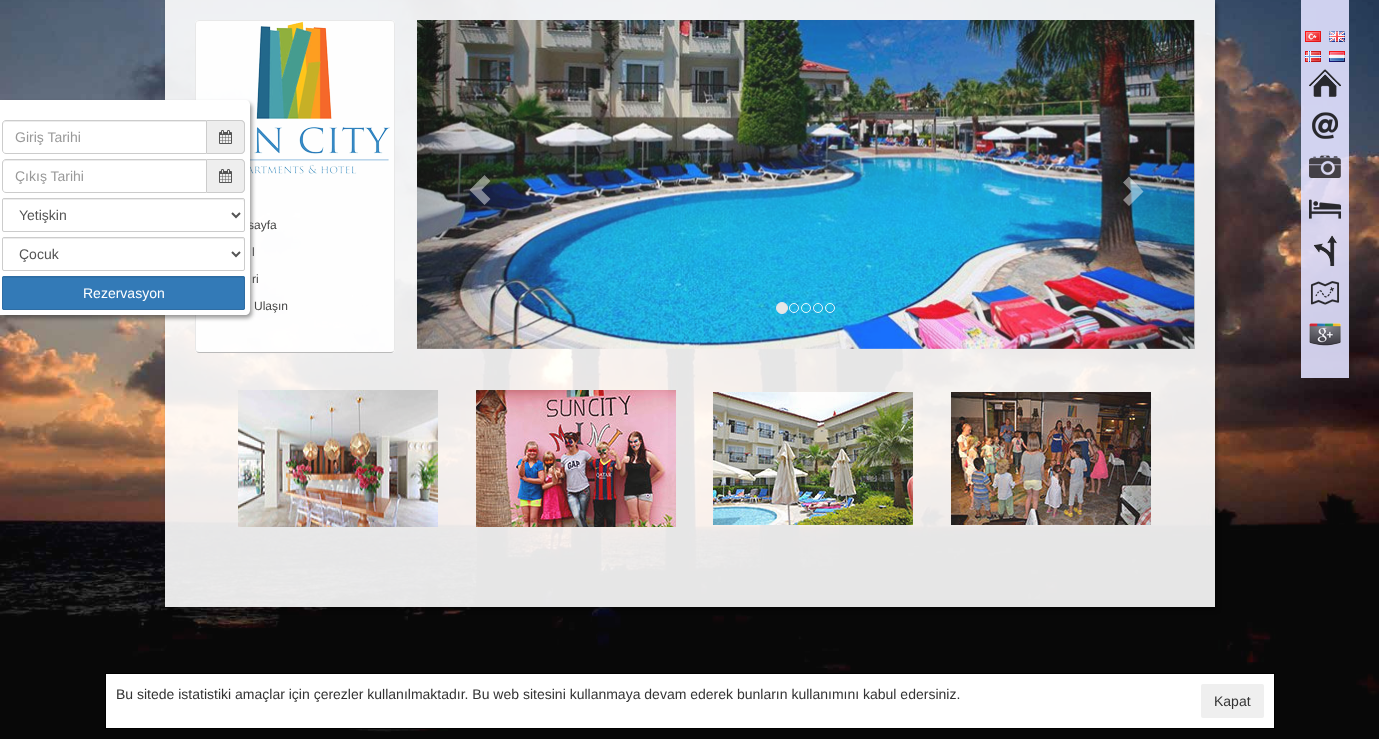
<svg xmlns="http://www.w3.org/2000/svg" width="1379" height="739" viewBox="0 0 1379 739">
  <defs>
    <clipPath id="clip1"><path d="M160 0H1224V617H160ZM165 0H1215V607H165Z" clip-rule="evenodd"/></clipPath>
    <linearGradient id="g1" gradientUnits="userSpaceOnUse" x1="417" y1="185" x2="533" y2="185"><stop offset="0" stop-color="rgb(0,0,0)" stop-opacity="0.23"/><stop offset="1" stop-color="rgb(0,0,0)" stop-opacity="0"/></linearGradient>
    <linearGradient id="g2" gradientUnits="userSpaceOnUse" x1="1078" y1="185" x2="1195" y2="185"><stop offset="0" stop-color="rgb(0,0,0)" stop-opacity="0"/><stop offset="1" stop-color="rgb(0,0,0)" stop-opacity="0.23"/></linearGradient>
  </defs>
  <rect width="100%" height="100%" fill="rgb(255,255,255)"/>
  <image x="0" y="0" width="1379" height="739" href="pic1.png"/>
  <g clip-path="url(#clip1)">
    <rect x="167" y="3" width="1050" height="607" fill="rgba(0,0,0,0.36)" filter="blur(2px)"/>
  </g>
  <rect x="165" y="0" width="1050" height="607" fill="rgba(255,255,255,0.9)"/>
  <rect x="195" y="20" width="200" height="333" rx="4" fill="rgba(255,255,255,0.9)"/>
  <path d="M393.5 351.5C393 352 392 352.5 391 352.5H199C198 352.5 197 352 196.5 351.5" fill="none" stroke="rgba(179,179,179,0.9)"/>
  <path d="M196.5 351.5C196 351 195.5 350 195.5 349V24C195.5 23 196 22 196.5 21.5C197 21 198 20.5 199 20.5H391C392 20.5 393 21 393.5 21.5C394 22 394.5 23 394.5 24V349C394.5 350 394 351 393.5 351.5" fill="none" stroke="rgba(230,230,230,0.9)"/>
  <image x="250" y="21" width="140" height="153" href="pic3.png"/>
  <rect x="2" y="103" width="250" height="215" rx="5" fill="rgba(0,0,0,0.4)" filter="blur(2px)"/>
  <text x="248" y="229" font-family="Liberation Sans" font-size="12" fill="rgb(71,71,71)">sayfa</text>
  <path d="M0 100H245C248 100 250 102 250 105V310C250 313 248 315 245 315H0Z" fill="rgb(255,255,255)"/>
  <path d="M6 122H206V121H5C3 122 3 123 3 125C3 123 4 122 6 122Z" fill="rgb(236,236,236)"/>
  <path d="M6 120.5H206.5V153.5H6C4 153.5 2.5 152 2.5 150V124C2.5 122 4 120.5 6 120.5Z" fill="none" stroke="rgb(204,204,204)"/>
  <text x="15" y="142" font-family="Liberation Sans" font-size="14" fill="rgb(153,153,153)">Giriş Tarihi</text>
  <path d="M207 120H241C243 120 245 122 245 124V150C245 152 243 154 241 154H207Z" fill="rgb(238,238,238)"/>
  <path d="M207 120H241C243 120 245 122 245 124V150C245 152 243 154 241 154H207ZM207 121H241C242.5 121 244 122.5 244 124V150C244 151.5 242.5 153 241 153H207Z" fill="rgb(204,204,204)" fill-rule="evenodd"/>
  <image x="219" y="130" width="13" height="14" href="pic2.png"/>
  <path d="M6 161H206V160H5C3 161 3 162 3 164C3 162 4 161 6 161Z" fill="rgb(236,236,236)"/>
  <path d="M6 159.5H206.5V192.5H6C4 192.5 2.5 191 2.5 189V163C2.5 161 4 159.5 6 159.5Z" fill="none" stroke="rgb(204,204,204)"/>
  <text x="15" y="181" font-family="Liberation Sans" font-size="14" fill="rgb(153,153,153)">Çıkış Tarihi</text>
  <path d="M207 159H241C243 159 245 161 245 163V189C245 191 243 193 241 193H207Z" fill="rgb(238,238,238)"/>
  <path d="M207 159H241C243 159 245 161 245 163V189C245 191 243 193 241 193H207ZM207 160H241C242.5 160 244 161.5 244 163V189C244 190.5 242.5 192 241 192H207Z" fill="rgb(204,204,204)" fill-rule="evenodd"/>
  <image x="219" y="169" width="13" height="14" href="pic2.png"/>
  <path d="M4 199L3 200H243L244 202C244 201 244 199 243 199Z" fill="rgb(236,236,236)"/>
  <rect x="2.5" y="198.5" width="242" height="33" rx="1.5" fill="none" stroke="rgb(204,204,204)"/>
  <path d="M232 213L236 217L240 213" fill="none" stroke="rgb(85,85,85)" stroke-width="2"/>
  <text x="19" y="220" font-family="Liberation Sans" font-size="14" fill="rgb(85,85,85)">Yetişkin</text>
  <path d="M4 238L3 239H243L244 241C244 240 244 238 243 238Z" fill="rgb(236,236,236)"/>
  <rect x="2.5" y="237.5" width="242" height="33" rx="1.5" fill="none" stroke="rgb(204,204,204)"/>
  <path d="M232 252L236 256L240 252" fill="none" stroke="rgb(85,85,85)" stroke-width="2"/>
  <text x="19" y="259" font-family="Liberation Sans" font-size="14" fill="rgb(85,85,85)">Çocuk</text>
  <rect x="2" y="276" width="243" height="34" rx="2" fill="rgb(51,122,183)"/>
  <path d="M4 277L3 278H243L244 280C244 279 244 277 243 277Z" fill="rgb(47,113,169)"/>
  <rect x="2.5" y="276.5" width="242" height="33" rx="1.5" fill="none" stroke="rgb(46,109,164)"/>
  <text x="83" y="298" font-family="Liberation Sans" font-size="14" fill="rgb(255,255,255)">Rezervasyon</text>
  <g font-family="Liberation Sans" font-size="12" fill="rgb(71,71,71)">
    <text x="252" y="256">l</text>
    <text x="252" y="283">ri</text>
    <text x="254" y="310">Ulaşın</text>
  </g>
  <image x="417" y="20" width="777" height="329" href="pic4.png"/>
  <rect x="417" y="20" width="105" height="329" fill="url(#g1)"/>
  <path d="M469.5 190L484.5 205L490.5 199L481.5 190L490.5 181L484.5 175Z" fill="rgba(255,255,255,0.45)"/>
  <circle cx="782" cy="308" r="5.5" fill="rgb(230,230,230)" stroke="rgb(230,230,230)"/>
  <circle cx="794" cy="308" r="4.5" fill="none" stroke="rgba(255,255,255,0.9)"/>
  <circle cx="806" cy="308" r="4.5" fill="none" stroke="rgba(255,255,255,0.9)"/>
  <circle cx="818" cy="308" r="4.5" fill="none" stroke="rgba(255,255,255,0.9)"/>
  <circle cx="830" cy="308" r="4.5" fill="none" stroke="rgba(255,255,255,0.9)"/>
  <rect x="1089" y="20" width="106" height="329" fill="url(#g2)"/>
  <path d="M1123 200L1131.5 191.5L1123 182.5L1129 176.5L1143.5 191.5L1129 206Z" fill="rgba(255,255,255,0.45)"/>
  <image x="238" y="390" width="200" height="137" href="pic5.png"/>
  <image x="476" y="390" width="200" height="137" href="pic6.png"/>
  <image x="713" y="392" width="200" height="133" href="pic7.png"/>
  <image x="951" y="392" width="200" height="133" href="pic8.png"/>
  <rect x="1301" y="0" width="48" height="378" fill="rgba(225,225,255,0.9)"/>
  <image x="1305" y="31" width="16" height="11" href="pic9.png"/>
  <image x="1329" y="31" width="16" height="11" href="pic10.png"/>
  <image x="1305" y="51" width="16" height="11" href="pic11.png"/>
  <image x="1329" y="51" width="16" height="11" href="pic12.png"/>
  <image x="1309" y="69" width="32" height="28" href="pic13.png"/>
  <image x="1312" y="112" width="27" height="27" href="pic14.png"/>
  <image x="1309" y="155" width="32" height="24" href="pic15.png"/>
  <image x="1309" y="199" width="32" height="20" href="pic16.png"/>
  <image x="1313" y="235" width="24" height="32" href="pic17.png"/>
  <image x="1310" y="281" width="30" height="24" href="pic18.png"/>
  <image x="1309" y="323" width="32" height="23" href="pic19.png"/>
  <rect x="105.5" y="673.5" width="1169" height="55" fill="rgb(255,255,255)" stroke="rgb(0,0,0)"/>
  <text x="116" y="699" font-family="Liberation Sans" font-size="14" fill="rgb(51,51,51)">Bu sitede istatistiki amaçlar için çerezler kullanılmaktadır. Bu web sitesini kullanmaya devam ederek bunların kullanımını kabul edersiniz.</text>
  <rect x="1201" y="684" width="63" height="34" rx="2" fill="rgb(239,239,239)"/>
  <text x="1214" y="706" font-family="Liberation Sans" font-size="14" fill="rgb(51,51,51)">Kapat</text>
</svg>
